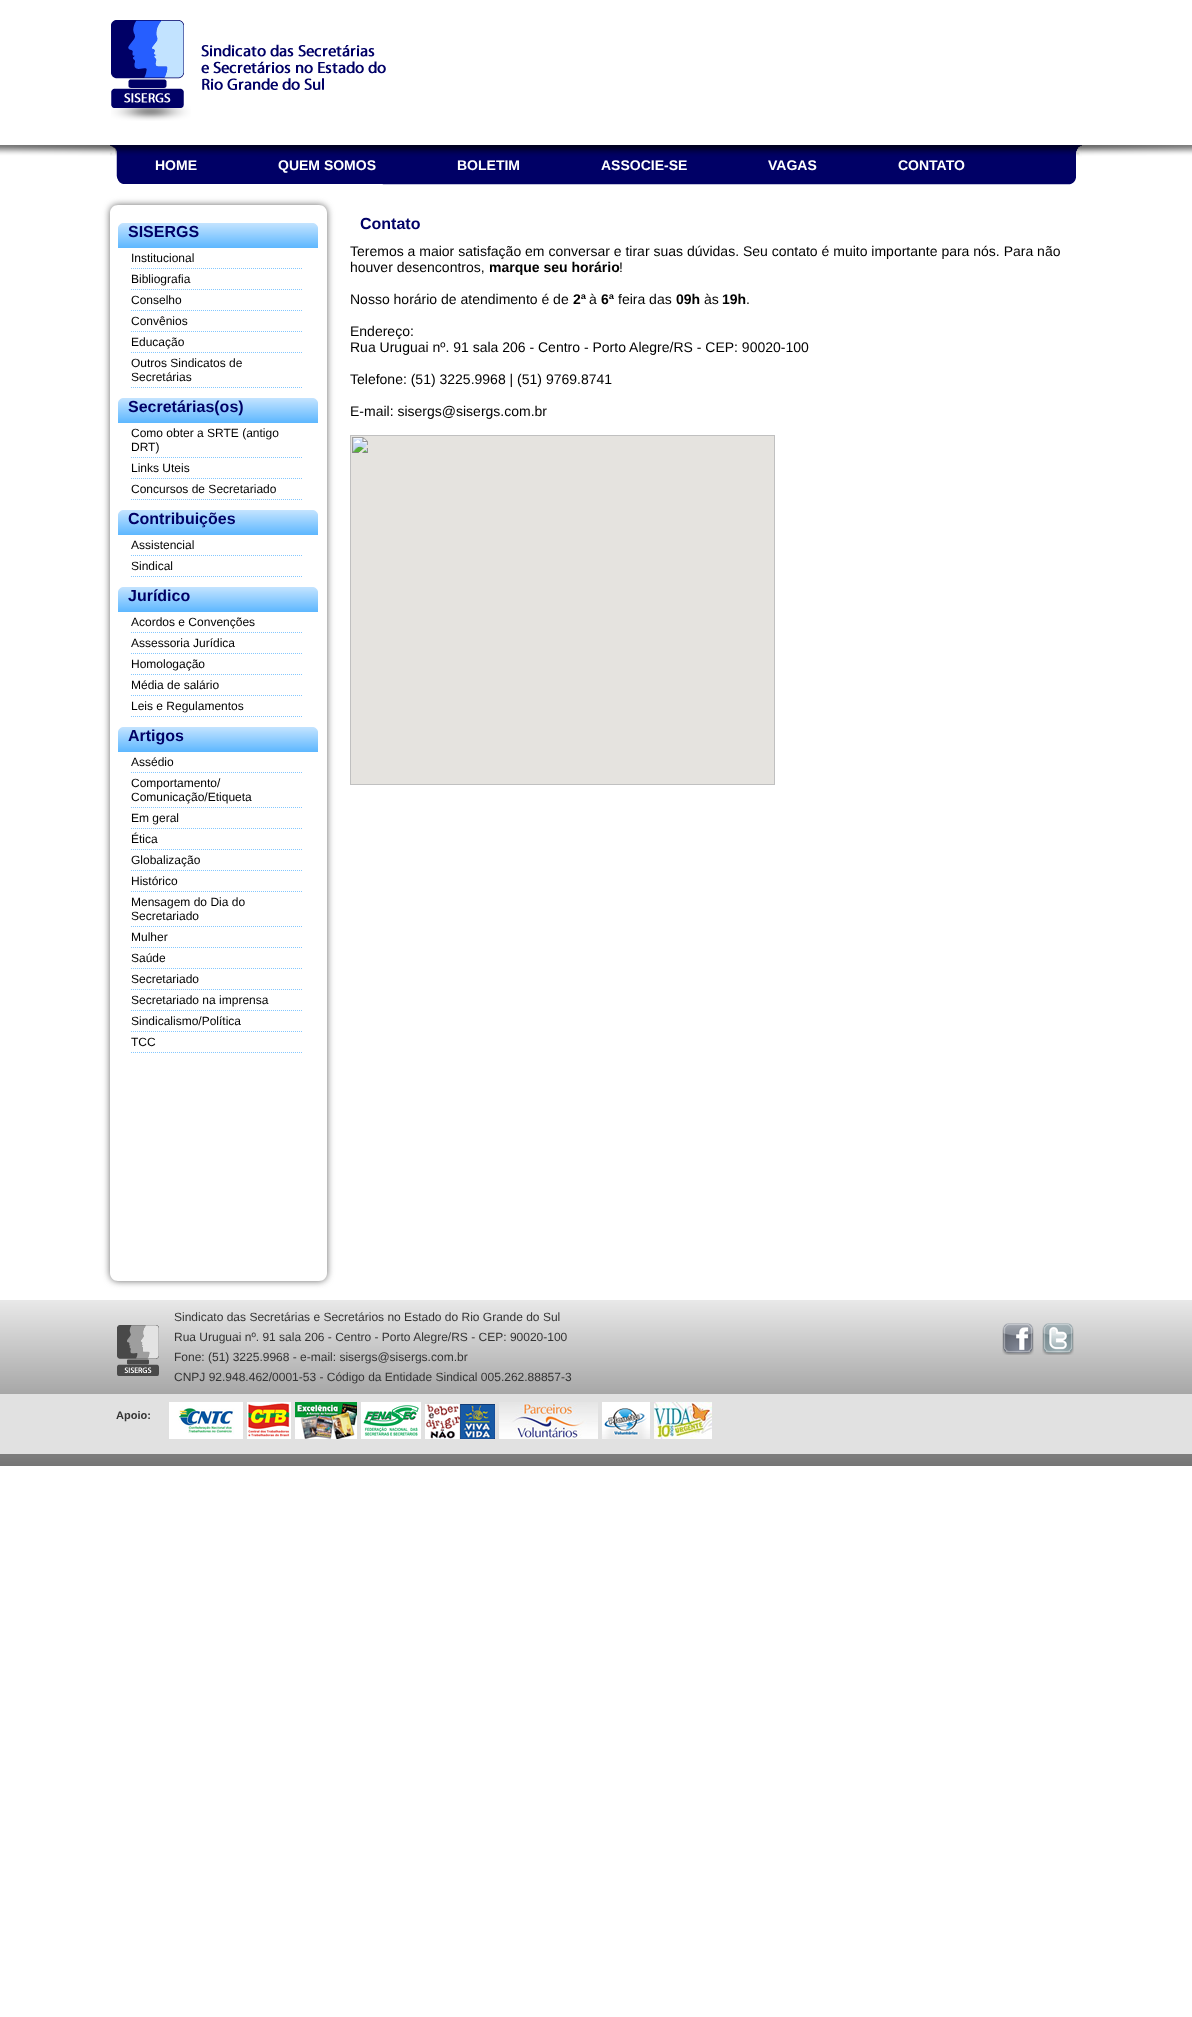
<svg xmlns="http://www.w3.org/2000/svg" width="1192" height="2017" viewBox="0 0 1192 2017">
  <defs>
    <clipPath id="clip1"><path d="M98 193H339V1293H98ZM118 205H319C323.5 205 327 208.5 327 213V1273C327 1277.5 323.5 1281 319 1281H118C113.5 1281 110 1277.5 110 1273V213C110 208.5 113.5 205 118 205Z" clip-rule="evenodd"/></clipPath>
  </defs>
  <rect width="100%" height="100%" fill="rgb(255,255,255)"/>
  <image x="0" y="145" width="1192" height="12" href="pic1.png"/>
  <image x="111" y="20" width="275" height="101" href="pic2.png"/>
  <image x="110" y="145" width="972" height="40" href="pic3.png"/>
  <g font-family="Liberation Sans" font-size="14" font-weight="bold" fill="rgb(255,255,255)">
    <text x="155" y="170">HOME</text>
    <text x="278" y="170">QUEM SOMOS</text>
    <text x="457" y="170">BOLETIM</text>
    <text x="601" y="170">ASSOCIE-SE</text>
    <text x="768" y="170">VAGAS</text>
    <text x="898" y="170">CONTATO</text>
  </g>
  <g clip-path="url(#clip1)">
    <rect x="110" y="205" width="217" height="1076" rx="8" fill="rgb(102,102,102)" filter="blur(3.5px)"/>
  </g>
  <image x="118" y="223" width="200" height="25" href="pic4.png"/>
  <text x="128" y="237" font-family="Liberation Sans" font-size="16" font-weight="bold" fill="rgb(0,0,102)">SISERGS</text>
  <path d="M131 268.5H303" fill="none" stroke="rgb(132,200,255)" stroke-dasharray="1 1"/>
  <text x="131" y="262" font-family="Liberation Sans" font-size="12" fill="rgb(0,0,0)">Institucional</text>
  <path d="M131 289.5H303" fill="none" stroke="rgb(132,200,255)" stroke-dasharray="1 1"/>
  <text x="131" y="283" font-family="Liberation Sans" font-size="12" fill="rgb(0,0,0)">Bibliografia</text>
  <path d="M131 310.5H303" fill="none" stroke="rgb(132,200,255)" stroke-dasharray="1 1"/>
  <text x="131" y="304" font-family="Liberation Sans" font-size="12" fill="rgb(0,0,0)">Conselho</text>
  <path d="M131 331.5H303" fill="none" stroke="rgb(132,200,255)" stroke-dasharray="1 1"/>
  <text x="131" y="325" font-family="Liberation Sans" font-size="12" fill="rgb(0,0,0)">Convênios</text>
  <path d="M131 352.5H303" fill="none" stroke="rgb(132,200,255)" stroke-dasharray="1 1"/>
  <text x="131" y="346" font-family="Liberation Sans" font-size="12" fill="rgb(0,0,0)">Educação</text>
  <path d="M131 387.5H303" fill="none" stroke="rgb(132,200,255)" stroke-dasharray="1 1"/>
  <g font-family="Liberation Sans" font-size="12" fill="rgb(0,0,0)">
    <text>
      <tspan x="131" y="367">Outros Sindicatos de</tspan>
      <tspan x="131" y="381">Secretárias</tspan>
    </text>
  </g>
  <image x="118" y="398" width="200" height="25" href="pic4.png"/>
  <text x="128" y="412" font-family="Liberation Sans" font-size="16" font-weight="bold" fill="rgb(0,0,102)">Secretárias(os)</text>
  <path d="M131 457.5H303" fill="none" stroke="rgb(132,200,255)" stroke-dasharray="1 1"/>
  <g font-family="Liberation Sans" font-size="12" fill="rgb(0,0,0)">
    <text>
      <tspan x="131" y="437">Como obter a SRTE (antigo</tspan>
      <tspan x="131" y="451">DRT)</tspan>
    </text>
  </g>
  <path d="M131 478.5H303" fill="none" stroke="rgb(132,200,255)" stroke-dasharray="1 1"/>
  <text x="131" y="472" font-family="Liberation Sans" font-size="12" fill="rgb(0,0,0)">Links Uteis</text>
  <path d="M131 499.5H303" fill="none" stroke="rgb(132,200,255)" stroke-dasharray="1 1"/>
  <text x="131" y="493" font-family="Liberation Sans" font-size="12" fill="rgb(0,0,0)">Concursos de Secretariado</text>
  <image x="118" y="510" width="200" height="25" href="pic4.png"/>
  <text x="128" y="524" font-family="Liberation Sans" font-size="16" font-weight="bold" fill="rgb(0,0,102)">Contribuições</text>
  <path d="M131 555.5H303" fill="none" stroke="rgb(132,200,255)" stroke-dasharray="1 1"/>
  <text x="131" y="549" font-family="Liberation Sans" font-size="12" fill="rgb(0,0,0)">Assistencial</text>
  <path d="M131 576.5H303" fill="none" stroke="rgb(132,200,255)" stroke-dasharray="1 1"/>
  <text x="131" y="570" font-family="Liberation Sans" font-size="12" fill="rgb(0,0,0)">Sindical</text>
  <image x="118" y="587" width="200" height="25" href="pic4.png"/>
  <text x="128" y="601" font-family="Liberation Sans" font-size="16" font-weight="bold" fill="rgb(0,0,102)">Jurídico</text>
  <path d="M131 632.5H303" fill="none" stroke="rgb(132,200,255)" stroke-dasharray="1 1"/>
  <text x="131" y="626" font-family="Liberation Sans" font-size="12" fill="rgb(0,0,0)">Acordos e Convenções</text>
  <path d="M131 653.5H303" fill="none" stroke="rgb(132,200,255)" stroke-dasharray="1 1"/>
  <text x="131" y="647" font-family="Liberation Sans" font-size="12" fill="rgb(0,0,0)">Assessoria Jurídica</text>
  <path d="M131 674.5H303" fill="none" stroke="rgb(132,200,255)" stroke-dasharray="1 1"/>
  <text x="131" y="668" font-family="Liberation Sans" font-size="12" fill="rgb(0,0,0)">Homologação</text>
  <path d="M131 695.5H303" fill="none" stroke="rgb(132,200,255)" stroke-dasharray="1 1"/>
  <text x="131" y="689" font-family="Liberation Sans" font-size="12" fill="rgb(0,0,0)">Média de salário</text>
  <path d="M131 716.5H303" fill="none" stroke="rgb(132,200,255)" stroke-dasharray="1 1"/>
  <text x="131" y="710" font-family="Liberation Sans" font-size="12" fill="rgb(0,0,0)">Leis e Regulamentos</text>
  <image x="118" y="727" width="200" height="25" href="pic4.png"/>
  <text x="128" y="741" font-family="Liberation Sans" font-size="16" font-weight="bold" fill="rgb(0,0,102)">Artigos</text>
  <path d="M131 772.5H303" fill="none" stroke="rgb(132,200,255)" stroke-dasharray="1 1"/>
  <text x="131" y="766" font-family="Liberation Sans" font-size="12" fill="rgb(0,0,0)">Assédio</text>
  <path d="M131 807.5H303" fill="none" stroke="rgb(132,200,255)" stroke-dasharray="1 1"/>
  <g font-family="Liberation Sans" font-size="12" fill="rgb(0,0,0)">
    <text>
      <tspan x="131" y="787">Comportamento/</tspan>
      <tspan x="131" y="801">Comunicação/Etiqueta</tspan>
    </text>
  </g>
  <path d="M131 828.5H303" fill="none" stroke="rgb(132,200,255)" stroke-dasharray="1 1"/>
  <text x="131" y="822" font-family="Liberation Sans" font-size="12" fill="rgb(0,0,0)">Em geral</text>
  <path d="M131 849.5H303" fill="none" stroke="rgb(132,200,255)" stroke-dasharray="1 1"/>
  <text x="131" y="843" font-family="Liberation Sans" font-size="12" fill="rgb(0,0,0)">Ética</text>
  <path d="M131 870.5H303" fill="none" stroke="rgb(132,200,255)" stroke-dasharray="1 1"/>
  <text x="131" y="864" font-family="Liberation Sans" font-size="12" fill="rgb(0,0,0)">Globalização</text>
  <path d="M131 891.5H303" fill="none" stroke="rgb(132,200,255)" stroke-dasharray="1 1"/>
  <text x="131" y="885" font-family="Liberation Sans" font-size="12" fill="rgb(0,0,0)">Histórico</text>
  <path d="M131 926.5H303" fill="none" stroke="rgb(132,200,255)" stroke-dasharray="1 1"/>
  <g font-family="Liberation Sans" font-size="12" fill="rgb(0,0,0)">
    <text>
      <tspan x="131" y="906">Mensagem do Dia do</tspan>
      <tspan x="131" y="920">Secretariado</tspan>
    </text>
  </g>
  <path d="M131 947.5H303" fill="none" stroke="rgb(132,200,255)" stroke-dasharray="1 1"/>
  <text x="131" y="941" font-family="Liberation Sans" font-size="12" fill="rgb(0,0,0)">Mulher</text>
  <path d="M131 968.5H303" fill="none" stroke="rgb(132,200,255)" stroke-dasharray="1 1"/>
  <text x="131" y="962" font-family="Liberation Sans" font-size="12" fill="rgb(0,0,0)">Saúde</text>
  <path d="M131 989.5H303" fill="none" stroke="rgb(132,200,255)" stroke-dasharray="1 1"/>
  <text x="131" y="983" font-family="Liberation Sans" font-size="12" fill="rgb(0,0,0)">Secretariado</text>
  <path d="M131 1010.5H303" fill="none" stroke="rgb(132,200,255)" stroke-dasharray="1 1"/>
  <text x="131" y="1004" font-family="Liberation Sans" font-size="12" fill="rgb(0,0,0)">Secretariado na imprensa</text>
  <path d="M131 1031.5H303" fill="none" stroke="rgb(132,200,255)" stroke-dasharray="1 1"/>
  <text x="131" y="1025" font-family="Liberation Sans" font-size="12" fill="rgb(0,0,0)">Sindicalismo/Política</text>
  <path d="M131 1052.5H303" fill="none" stroke="rgb(132,200,255)" stroke-dasharray="1 1"/>
  <text x="131" y="1046" font-family="Liberation Sans" font-size="12" fill="rgb(0,0,0)">TCC</text>
  <text x="360" y="229" font-family="Liberation Sans" font-size="16" font-weight="bold" fill="rgb(0,0,102)">Contato</text>
  <g font-family="Liberation Sans" font-size="14" fill="rgb(0,0,0)">
    <text>
      <tspan x="350" y="256">Teremos a maior satisfação em conversar e tirar suas dúvidas. Seu contato é muito importante para nós. Para não</tspan>
      <tspan x="350" y="272">houver desencontros,</tspan>
    </text>
  </g>
  <text x="489" y="272" font-family="Liberation Sans" font-size="14" font-weight="bold" fill="rgb(0,0,0)">marque seu horário</text>
  <g font-family="Liberation Sans" font-size="14" fill="rgb(0,0,0)">
    <text x="619" y="272">!</text>
    <text x="350" y="304">Nosso horário de atendimento é de</text>
  </g>
  <text x="573" y="304" font-family="Liberation Sans" font-size="14" font-weight="bold" fill="rgb(0,0,0)">2ª</text>
  <text x="589" y="304" font-family="Liberation Sans" font-size="14" fill="rgb(0,0,0)">à</text>
  <text x="601" y="304" font-family="Liberation Sans" font-size="14" font-weight="bold" fill="rgb(0,0,0)">6ª</text>
  <text x="618" y="304" font-family="Liberation Sans" font-size="14" fill="rgb(0,0,0)">feira das</text>
  <text x="676" y="304" font-family="Liberation Sans" font-size="14" font-weight="bold" fill="rgb(0,0,0)">09h</text>
  <text x="704" y="304" font-family="Liberation Sans" font-size="14" fill="rgb(0,0,0)">às</text>
  <text x="722" y="304" font-family="Liberation Sans" font-size="14" font-weight="bold" fill="rgb(0,0,0)">19h</text>
  <g font-family="Liberation Sans" font-size="14" fill="rgb(0,0,0)">
    <text x="746" y="304">.</text>
    <text>
      <tspan x="350" y="336">Endereço:</tspan>
      <tspan x="350" y="352">Rua Uruguai nº. 91 sala 206 - Centro - Porto Alegre/RS - CEP: 90020-100</tspan>
    </text>
    <text x="350" y="384">Telefone: (51) 3225.9968 | (51) 9769.8741</text>
    <text x="350" y="416">E-mail: sisergs@sisergs.com.br</text>
  </g>
  <image x="350" y="435" width="425" height="350" href="pic5.png"/>
  <image x="0" y="1300" width="1192" height="166" href="pic6.png"/>
  <image x="117" y="1325" width="42" height="51" href="pic7.png"/>
  <g font-family="Liberation Sans" font-size="12" fill="rgb(51,51,51)">
    <text>
      <tspan x="174" y="1321">Sindicato das Secretárias e Secretários no Estado do Rio Grande do Sul</tspan>
      <tspan x="174" y="1341">Rua Uruguai nº. 91 sala 206 - Centro - Porto Alegre/RS - CEP: 90020-100</tspan>
      <tspan x="174" y="1361">Fone: (51) 3225.9968 - e-mail: sisergs@sisergs.com.br</tspan>
      <tspan x="174" y="1381">CNPJ 92.948.462/0001-53 - Código da Entidade Sindical 005.262.88857-3</tspan>
    </text>
  </g>
  <image x="1002" y="1323" width="32" height="32" href="pic8.png"/>
  <image x="1042" y="1323" width="32" height="32" href="pic9.png"/>
  <text x="116" y="1419" font-family="Liberation Sans" font-size="11" font-weight="bold" fill="rgb(51,51,51)">Apoio:</text>
  <image x="169" y="1402" width="74" height="37" href="pic10.png"/>
  <image x="247" y="1402" width="44" height="37" href="pic11.png"/>
  <image x="295" y="1402" width="62" height="37" href="pic12.png"/>
  <image x="361" y="1402" width="60" height="37" href="pic13.png"/>
  <image x="425" y="1404" width="70" height="35" href="pic14.png"/>
  <image x="499" y="1402" width="99" height="37" href="pic15.png"/>
  <image x="602" y="1402" width="48" height="37" href="pic16.png"/>
  <image x="654" y="1402" width="58" height="37" href="pic17.png"/>
</svg>
